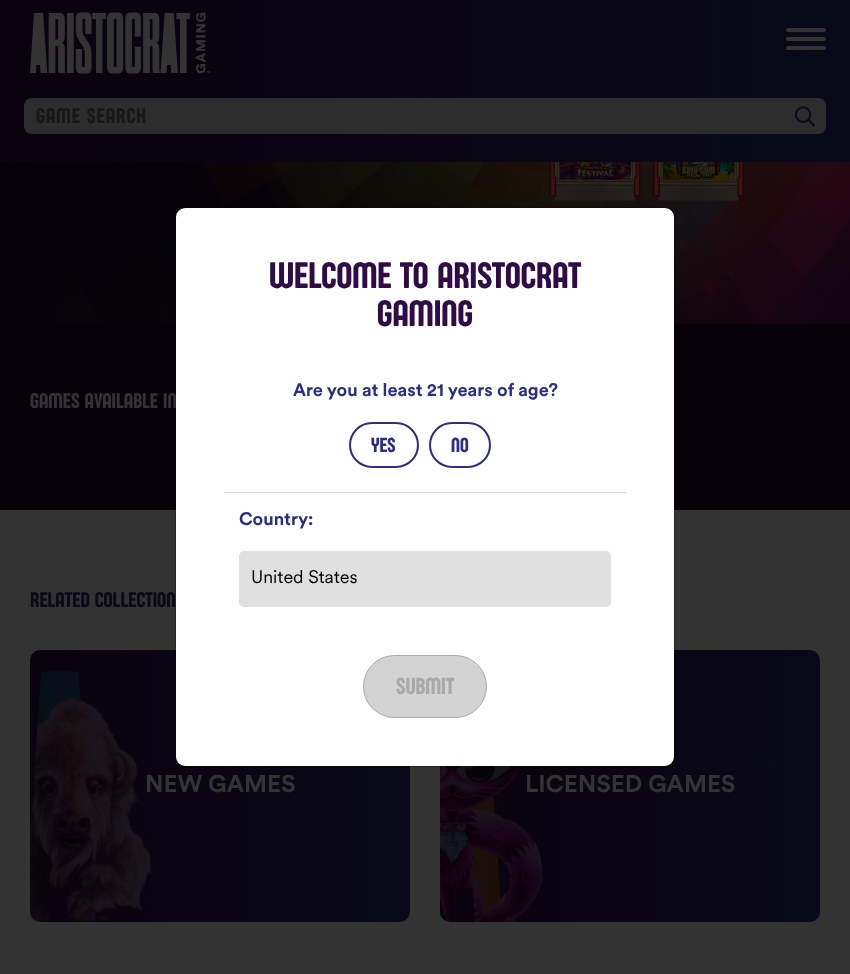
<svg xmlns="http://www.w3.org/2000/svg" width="850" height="974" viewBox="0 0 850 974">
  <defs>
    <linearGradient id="g1" gradientUnits="userSpaceOnUse" x1="0" y1="81" x2="850" y2="81"><stop offset="0" stop-color="rgb(10,2,14)"/><stop offset="1" stop-color="rgb(9,9,26)"/></linearGradient>
    <linearGradient id="g2" gradientUnits="userSpaceOnUse" x1="30" y1="786" x2="790" y2="786"><stop offset="0" stop-color="rgb(10,2,14)"/><stop offset="0.51" stop-color="rgb(9,9,26)"/><stop offset="1" stop-color="rgb(10,2,14)"/></linearGradient>
    <linearGradient id="g3" gradientUnits="userSpaceOnUse" x1="440" y1="786" x2="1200" y2="786"><stop offset="0" stop-color="rgb(10,2,14)"/><stop offset="0.51" stop-color="rgb(9,9,26)"/><stop offset="1" stop-color="rgb(10,2,14)"/></linearGradient>
  </defs>
  <rect width="100%" height="100%" fill="rgb(51,51,51)"/>
  <rect x="0" y="0" width="850" height="162" fill="url(#g1)"/>
  <image x="30" y="12" width="180" height="62" href="pic1.png"/>
  <rect x="786" y="28" width="40" height="4" rx="2" fill="rgb(51,51,51)"/>
  <rect x="786" y="37" width="40" height="4" rx="2" fill="rgb(51,51,51)"/>
  <rect x="786" y="46" width="40" height="4" rx="2" fill="rgb(51,51,51)"/>
  <rect x="24" y="98" width="802" height="36" rx="8" fill="rgb(45,45,45)"/>
  <text x="36" y="123" font-family="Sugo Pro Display" font-size="22" letter-spacing="1" fill="rgb(23,23,23)">GAME SEARCH</text>
  <image x="795" y="106" width="20" height="21" href="pic2.png"/>
  <image x="0" y="162" width="850" height="162" href="pic3.png"/>
  <image x="549" y="162" width="196" height="39" href="pic4.png"/>
  <rect x="0" y="324" width="850" height="186" fill="rgb(7,1,10)"/>
  <text x="30" y="408" font-family="Sugo Pro Display" font-size="22" fill="rgb(51,51,51)">GAMES AVAILABLE IN</text>
  <rect x="30" y="650" width="380" height="272" rx="10" fill="url(#g2)"/>
  <rect x="440" y="650" width="380" height="272" rx="10" fill="url(#g3)"/>
  <rect x="176" y="208" width="498" height="558" rx="9" fill="rgb(255,255,255)"/>
  <image x="440" y="766" width="103" height="156" href="pic6.png"/>
  <rect x="175.5" y="207.5" width="499" height="559" rx="9.5" fill="none" stroke="rgba(0,0,0,0.2)"/>
  <g font-family="Sugo Pro Display" font-size="38" fill="rgb(48,12,70)">
    <text x="269" y="288">WELCOME TO ARISTOCRAT</text>
    <text x="377" y="326">GAMING</text>
  </g>
  <text x="293" y="396" font-family="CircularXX" font-size="18" font-weight="bold" fill="rgb(45,46,131)">Are you at least 21 years of age?</text>
  <rect x="350" y="423" width="68" height="44" rx="22" fill="none" stroke="rgb(45,46,131)" stroke-width="2"/>
  <text x="371" y="452" font-family="Sugo Pro Display" font-size="21" fill="rgb(45,46,131)">YES</text>
  <rect x="430" y="423" width="60" height="44" rx="22" fill="none" stroke="rgb(45,46,131)" stroke-width="2"/>
  <text x="451" y="452" font-family="Sugo Pro Display" font-size="21" fill="rgb(45,46,131)">NO</text>
  <rect x="224" y="492" width="402" height="1" fill="rgb(210,210,210)"/>
  <text x="239" y="525" font-family="CircularXX" font-size="18" font-weight="bold" fill="rgb(45,46,131)">Country:</text>
  <rect x="239" y="551" width="372" height="56" rx="5" fill="rgb(224,224,224)"/>
  <text x="251" y="583" font-family="CircularXX" font-size="18" fill="rgb(0,0,0)">United States</text>
  <rect x="363.5" y="655.5" width="123" height="62" rx="31" fill="rgb(211,211,211)" stroke="rgb(169,169,169)"/>
  <text x="396" y="694" font-family="Sugo Pro Display" font-size="24" fill="rgb(169,169,169)">SUBMIT</text>
  <text x="30" y="607" font-family="Sugo Pro Display" font-size="22" fill="rgb(9,9,26)">RELATED COLLECTION</text>
  <image x="30" y="670" width="122" height="252" href="pic5.png"/>
  <g font-family="CircularXX" font-size="24" font-weight="bold" fill="rgb(51,51,51)">
    <text x="145" y="792">NEW GAMES</text>
    <text x="525" y="792">LICENSED GAMES</text>
  </g>
</svg>
